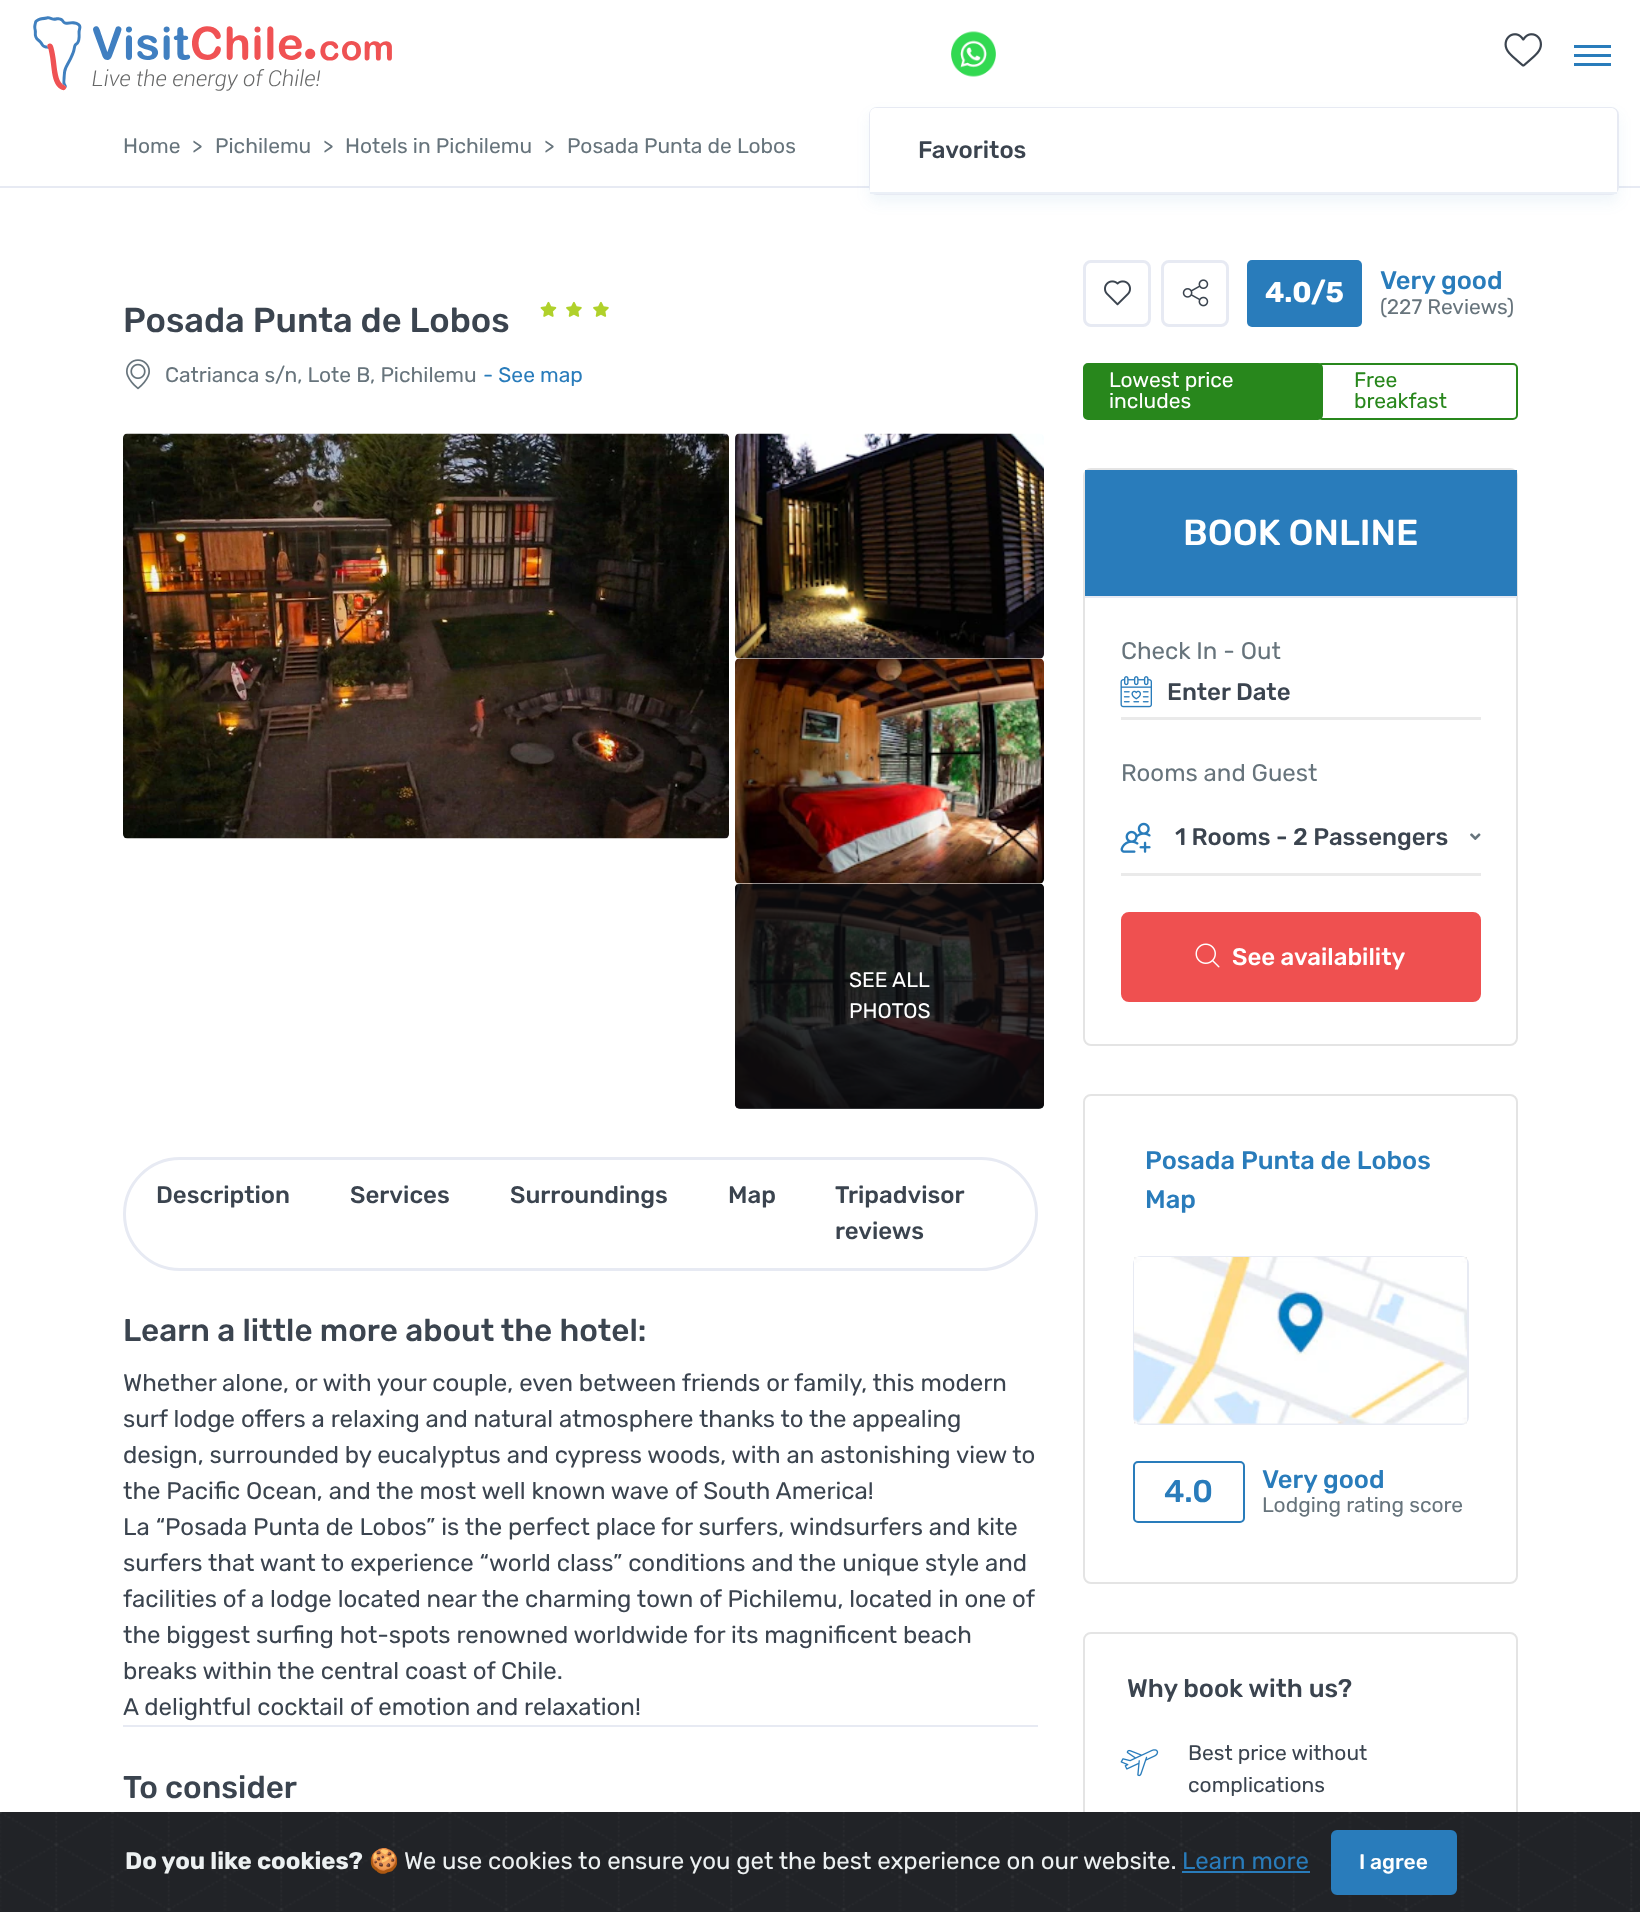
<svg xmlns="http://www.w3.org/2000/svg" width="1640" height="1912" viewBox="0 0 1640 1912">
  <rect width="100%" height="100%" fill="rgb(255,255,255)"/>
  <rect x="0" y="186" width="1640" height="2" fill="rgb(231,234,243)"/>
  <g font-family="Rubik" font-size="21" fill="rgb(103,116,124)">
    <text x="123" y="153">Home</text>
    <text x="192" y="153">&gt;</text>
    <text x="215" y="153">Pichilemu</text>
    <text x="323" y="153">&gt;</text>
    <text x="345" y="153">Hotels in Pichilemu</text>
    <text x="544" y="153">&gt;</text>
    <text x="567" y="153">Posada Punta de Lobos</text>
  </g>
  <text x="123" y="332" font-family="Rubik" font-size="34.5" font-weight="500" fill="rgb(59,68,79)">Posada Punta de Lobos</text>
  <image x="540" y="301" width="17" height="16" href="pic1.png"/>
  <image x="566" y="301" width="16" height="16" href="pic2.png"/>
  <image x="593" y="301" width="16" height="16" href="pic2.png"/>
  <image x="126" y="359" width="24" height="31" href="pic3.png"/>
  <text x="165" y="382" font-family="Rubik" font-size="21" fill="rgb(103,116,124)">Catrianca s/n, Lote B, Pichilemu</text>
  <text x="483" y="382" font-family="Rubik" font-size="21" fill="rgb(41,124,187)">- See map</text>
  <image x="123" y="433" width="606" height="406" href="pic4.png"/>
  <image x="735" y="433" width="309" height="226" href="pic5.png"/>
  <image x="735" y="658" width="309" height="226" href="pic6.png"/>
  <image x="735" y="883" width="309" height="226" href="pic7.png"/>
  <rect x="735" y="884" width="309" height="225" rx="5" fill="rgba(11,13,16,0.8)"/>
  <g font-family="Rubik" font-size="21" fill="rgb(255,255,255)">
    <text>
      <tspan x="849" y="987">SEE ALL</tspan>
      <tspan x="849" y="1018">PHOTOS</tspan>
    </text>
  </g>
  <rect x="124.5" y="1158.5" width="912" height="111" rx="55.5" fill="none" stroke="rgb(231,234,243)" stroke-width="3"/>
  <g font-family="Rubik" font-size="24" font-weight="500" fill="rgb(59,68,79)">
    <text x="156" y="1203">Description</text>
    <text x="350" y="1203">Services</text>
    <text x="510" y="1203">Surroundings</text>
    <text x="728" y="1203">Map</text>
    <text>
      <tspan x="835" y="1203">Tripadvisor</tspan>
      <tspan x="835" y="1239">reviews</tspan>
    </text>
  </g>
  <rect x="123" y="1725" width="915" height="2" fill="rgb(231,234,243)"/>
  <text x="123" y="1341" font-family="Rubik" font-size="31.5" font-weight="500" fill="rgb(59,68,79)">Learn a little more about the hotel:</text>
  <g font-family="Rubik" font-size="24" fill="rgb(59,68,79)">
    <text>
      <tspan x="123" y="1391">Whether alone, or with your couple, even between friends or family, this modern</tspan>
      <tspan x="123" y="1427">surf lodge offers a relaxing and natural atmosphere thanks to the appealing</tspan>
      <tspan x="123" y="1463">design, surrounded by eucalyptus and cypress woods, with an astonishing view to</tspan>
      <tspan x="123" y="1499">the Pacific Ocean, and the most well known wave of South America!</tspan>
      <tspan x="123" y="1535">La “Posada Punta de Lobos” is the perfect place for surfers, windsurfers and kite</tspan>
      <tspan x="123" y="1571">surfers that want to experience “world class” conditions and the unique style and</tspan>
      <tspan x="123" y="1607">facilities of a lodge located near the charming town of Pichilemu, located in one of</tspan>
      <tspan x="123" y="1643">the biggest surfing hot-spots renowned worldwide for its magnificent beach</tspan>
      <tspan x="123" y="1679">breaks within the central coast of Chile.</tspan>
      <tspan x="123" y="1715">A delightful cocktail of emotion and relaxation!</tspan>
    </text>
  </g>
  <text x="123" y="1798" font-family="Rubik" font-size="31.5" font-weight="500" fill="rgb(59,68,79)">To consider</text>
  <rect x="1084.5" y="261.5" width="65" height="64" rx="6.5" fill="none" stroke="rgb(231,234,243)" stroke-width="3"/>
  <image x="1104" y="280" width="27" height="26" href="pic8.png"/>
  <rect x="1162.5" y="261.5" width="65" height="64" rx="6.5" fill="none" stroke="rgb(231,234,243)" stroke-width="3"/>
  <image x="1182" y="279" width="27" height="28" href="pic9.png"/>
  <rect x="1247" y="260" width="115" height="67" rx="5" fill="rgb(41,124,187)"/>
  <text x="1265" y="302" font-family="Rubik" font-size="28.5" font-weight="bold" fill="rgb(255,255,255)">4.0/5</text>
  <text x="1380" y="289" font-family="Rubik" font-size="25.5" font-weight="500" fill="rgb(41,124,187)">Very good</text>
  <text x="1380" y="314" font-family="Rubik" font-size="21" fill="rgb(103,116,124)">(227 Reviews)</text>
  <rect x="1084" y="364" width="238" height="55" rx="4" fill="rgb(40,135,28)" stroke="rgb(40,135,28)" stroke-width="2"/>
  <g font-family="Rubik" font-size="21" fill="rgb(255,255,255)">
    <text>
      <tspan x="1109" y="387">Lowest price</tspan>
      <tspan x="1109" y="408">includes</tspan>
    </text>
  </g>
  <rect x="1318" y="364" width="199" height="55" rx="4" fill="none" stroke="rgb(40,135,28)" stroke-width="2"/>
  <g font-family="Rubik" font-size="21" fill="rgb(40,135,28)">
    <text>
      <tspan x="1354" y="387">Free</tspan>
      <tspan x="1354" y="408">breakfast</tspan>
    </text>
  </g>
  <rect x="1084" y="469" width="433" height="576" rx="7" fill="none" stroke="rgb(228,228,228)" stroke-width="2"/>
  <rect x="1085" y="596" width="432" height="2" fill="rgb(231,234,243)"/>
  <rect x="1085" y="470" width="432" height="126" fill="rgb(41,124,187)"/>
  <text x="1183" y="545" font-family="Rubik" font-size="36" font-weight="500" fill="rgb(255,255,255)">BOOK ONLINE</text>
  <text x="1121" y="659" font-family="Rubik" font-size="24" fill="rgb(103,116,124)">Check In - Out</text>
  <rect x="1121" y="717" width="360" height="3" fill="rgb(234,234,234)"/>
  <image x="1120" y="676" width="32" height="32" href="pic10.png"/>
  <text x="1167" y="700" font-family="Rubik" font-size="24" font-weight="500" fill="rgb(59,68,79)">Enter Date</text>
  <text x="1121" y="781" font-family="Rubik" font-size="24" fill="rgb(103,116,124)">Rooms and Guest</text>
  <rect x="1121" y="873" width="360" height="3" fill="rgb(234,234,234)"/>
  <image x="1120" y="822" width="31" height="31" href="pic11.png"/>
  <text x="1175" y="845" font-family="Rubik" font-size="24" font-weight="500" fill="rgb(59,68,79)">1 Rooms - 2 Passengers</text>
  <image x="1470" y="833" width="11" height="7" href="pic12.png"/>
  <rect x="1122" y="913" width="358" height="88" rx="7" fill="rgb(239,80,80)" stroke="rgb(239,80,80)" stroke-width="2"/>
  <image x="1195" y="943" width="25" height="25" href="pic13.png"/>
  <text x="1232" y="965" font-family="Rubik" font-size="24" font-weight="500" fill="rgb(255,255,255)">See availability</text>
  <rect x="1084" y="1095" width="433" height="488" rx="7" fill="none" stroke="rgb(228,228,228)" stroke-width="2"/>
  <g font-family="Rubik" font-size="25.5" font-weight="500" fill="rgb(41,124,187)">
    <text>
      <tspan x="1145" y="1169">Posada Punta de Lobos</tspan>
      <tspan x="1145" y="1208">Map</tspan>
    </text>
  </g>
  <rect x="1134" y="1257" width="334" height="167" rx="7" fill="none" stroke="rgb(231,234,243)" stroke-width="2"/>
  <image x="1134" y="1257" width="333" height="167" href="pic14.png"/>
  <rect x="1134" y="1462" width="110" height="60" rx="4" fill="none" stroke="rgb(41,124,187)" stroke-width="2"/>
  <text x="1164" y="1502" font-family="Rubik" font-size="31.5" font-weight="500" fill="rgb(41,124,187)">4.0</text>
  <text x="1262" y="1488" font-family="Rubik" font-size="25.5" font-weight="500" fill="rgb(41,124,187)">Very good</text>
  <text x="1262" y="1512" font-family="Rubik" font-size="21" fill="rgb(103,116,124)">Lodging rating score</text>
  <rect x="1084" y="1633" width="433" height="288" rx="7" fill="none" stroke="rgb(228,228,228)" stroke-width="2"/>
  <text x="1127" y="1697" font-family="Rubik" font-size="25.5" font-weight="500" fill="rgb(59,68,79)">Why book with us?</text>
  <image x="1120" y="1749" width="39" height="28" href="pic15.png"/>
  <g font-family="Rubik" font-size="21" fill="rgb(59,68,79)">
    <text>
      <tspan x="1188" y="1760">Best price without</tspan>
      <tspan x="1188" y="1792">complications</tspan>
    </text>
  </g>
  <image x="33" y="16" width="359" height="75" href="pic16.png"/>
  <image x="951" y="31" width="45" height="46" href="pic17.png"/>
  <rect x="1574" y="45" width="37" height="3" fill="rgb(41,124,187)"/>
  <rect x="1574" y="54" width="37" height="3" fill="rgb(41,124,187)"/>
  <rect x="1574" y="63" width="37" height="3" fill="rgb(41,124,187)"/>
  <image x="1504" y="33" width="38" height="34" href="pic18.png"/>
  <rect x="869" y="114" width="750" height="89" rx="8" fill="rgba(41,124,187,0.07)" filter="blur(7px)"/>
  <rect x="870" y="108" width="748" height="86" rx="7" fill="none" stroke="rgb(231,234,243)" stroke-width="2"/>
  <path d="M876 108H1611C1614.5 108 1617 110.5 1617 114V194H870V114C870 110.5 872.5 108 876 108Z" fill="rgb(255,255,255)"/>
  <rect x="870" y="192" width="747" height="2" fill="rgb(235,240,247)"/>
  <text x="918" y="158" font-family="Rubik" font-size="24" font-weight="500" fill="rgb(59,68,79)">Favoritos</text>
  <rect x="0" y="1911" width="1640" height="1" fill="rgb(33,35,39)"/>
  <image x="0" y="1812" width="1640" height="99" href="pic19.png"/>
  <text x="125" y="1869" font-family="Rubik" font-size="24" font-weight="bold" fill="rgb(236,240,241)">Do you like cookies?</text>
  <text x="369" y="1869" font-family="Noto Color Emoji" font-size="24" fill="rgb(236,240,241)">🍪</text>
  <text x="404" y="1869" font-family="Rubik" font-size="24" fill="rgb(236,240,241)">We use cookies to ensure you get the best experience on our website.</text>
  <text x="1182" y="1869" font-family="Rubik" font-size="24" fill="rgb(41,124,187)">Learn more</text>
  <rect x="1182" y="1871" width="128" height="2" fill="rgb(41,124,187)"/>
  <rect x="1332" y="1831" width="124" height="63" rx="5" fill="rgb(41,124,187)" stroke="rgb(41,124,187)" stroke-width="2"/>
  <text x="1359" y="1869" font-family="Rubik" font-size="21" font-weight="500" fill="rgb(255,255,255)">I agree</text>
</svg>
